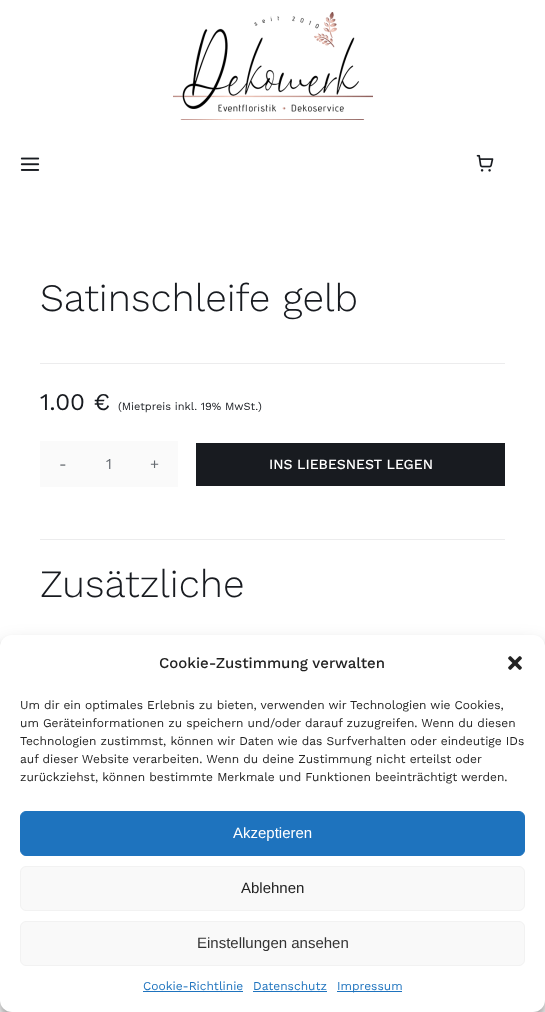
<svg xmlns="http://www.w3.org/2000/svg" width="545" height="1012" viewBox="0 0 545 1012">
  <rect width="100%" height="100%" fill="rgb(255,255,255)"/>
  <image x="173" y="12" width="200" height="108" href="pic1.png"/>
  <image x="20" y="157" width="20" height="14" href="pic2.png"/>
  <image x="476" y="154" width="18" height="18" href="pic3.png"/>
  <text x="40" y="311" font-family="Work Sans" font-size="38.75" font-weight="300" fill="rgb(24,27,32)">Satinschleife gelb</text>
  <rect x="40" y="363" width="465" height="1" fill="rgb(236,236,237)"/>
  <text x="40" y="410" font-family="Work Sans" font-size="24" fill="rgb(24,27,32)">1.00 €</text>
  <text x="118" y="410" font-family="Work Sans" font-size="11" fill="rgb(24,27,32)">(Mietpreis inkl. 19% MwSt.)</text>
  <rect x="40" y="441" width="138" height="46" fill="rgb(250,250,250)"/>
  <g font-family="Work Sans" font-size="15" fill="rgb(101,106,112)">
    <text x="59" y="469">-</text>
    <text x="106" y="469">1</text>
    <text x="150" y="469">+</text>
  </g>
  <rect x="196" y="443" width="309" height="43" fill="rgb(24,27,32)"/>
  <text x="269" y="469" font-family="Work Sans" font-size="14" font-weight="500" fill="rgb(255,255,255)">INS LIEBESNEST LEGEN</text>
  <rect x="40" y="539" width="465" height="1" fill="rgb(236,236,237)"/>
  <text x="40" y="597" font-family="Work Sans" font-size="38.75" font-weight="300" fill="rgb(24,27,32)">Zusätzliche</text>
  <rect x="0" y="641" width="545" height="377" rx="12" fill="rgba(0,0,0,0.23)" filter="blur(3px)"/>
  <rect x="0" y="645" width="545" height="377" rx="12" fill="rgba(0,0,0,0.19)" filter="blur(10px)"/>
  <rect x="0" y="635" width="545" height="377" rx="12" fill="rgb(255,255,255)"/>
  <text x="159" y="668" font-family="Work Sans" font-size="15" font-weight="500" fill="rgb(34,34,34)">Cookie-Zustimmung verwalten</text>
  <image x="508" y="656" width="14" height="14" href="pic4.png"/>
  <g font-family="Work Sans" font-size="12" fill="rgb(34,34,34)">
    <text>
      <tspan x="20" y="709">Um dir ein optimales Erlebnis zu bieten, verwenden wir Technologien wie Cookies,</tspan>
      <tspan x="20" y="727">um Geräteinformationen zu speichern und/oder darauf zuzugreifen. Wenn du diesen</tspan>
      <tspan x="20" y="745">Technologien zustimmst, können wir Daten wie das Surfverhalten oder eindeutige IDs</tspan>
      <tspan x="20" y="763">auf dieser Website verarbeiten. Wenn du deine Zustimmung nicht erteilst oder</tspan>
      <tspan x="20" y="781">zurückziehst, können bestimmte Merkmale und Funktionen beeinträchtigt werden.</tspan>
    </text>
  </g>
  <rect x="20.5" y="811.5" width="504" height="44" rx="5.5" fill="rgb(30,115,190)" stroke="rgb(30,115,190)"/>
  <text x="233" y="838" font-family="Liberation Sans" font-size="15" fill="rgb(255,255,255)">Akzeptieren</text>
  <rect x="20.5" y="866.5" width="504" height="44" rx="5.5" fill="rgb(249,249,249)" stroke="rgb(242,242,242)"/>
  <text x="241" y="893" font-family="Liberation Sans" font-size="15" fill="rgb(34,34,34)">Ablehnen</text>
  <rect x="20.5" y="921.5" width="504" height="44" rx="5.5" fill="rgb(249,249,249)" stroke="rgb(242,242,242)"/>
  <text x="197" y="948" font-family="Liberation Sans" font-size="15" fill="rgb(51,51,51)">Einstellungen ansehen</text>
  <text x="143" y="990" font-family="Work Sans" font-size="12" fill="rgb(30,115,190)">Cookie-Richtlinie</text>
  <rect x="143" y="991" width="100" height="1" fill="rgb(30,115,190)"/>
  <text x="253" y="990" font-family="Work Sans" font-size="12" fill="rgb(30,115,190)">Datenschutz</text>
  <rect x="253" y="991" width="74" height="1" fill="rgb(30,115,190)"/>
  <rect x="337" y="991" width="65" height="1" fill="rgb(30,115,190)"/>
  <text x="337" y="990" font-family="Work Sans" font-size="12" fill="rgb(30,115,190)">Impressum</text>
</svg>
